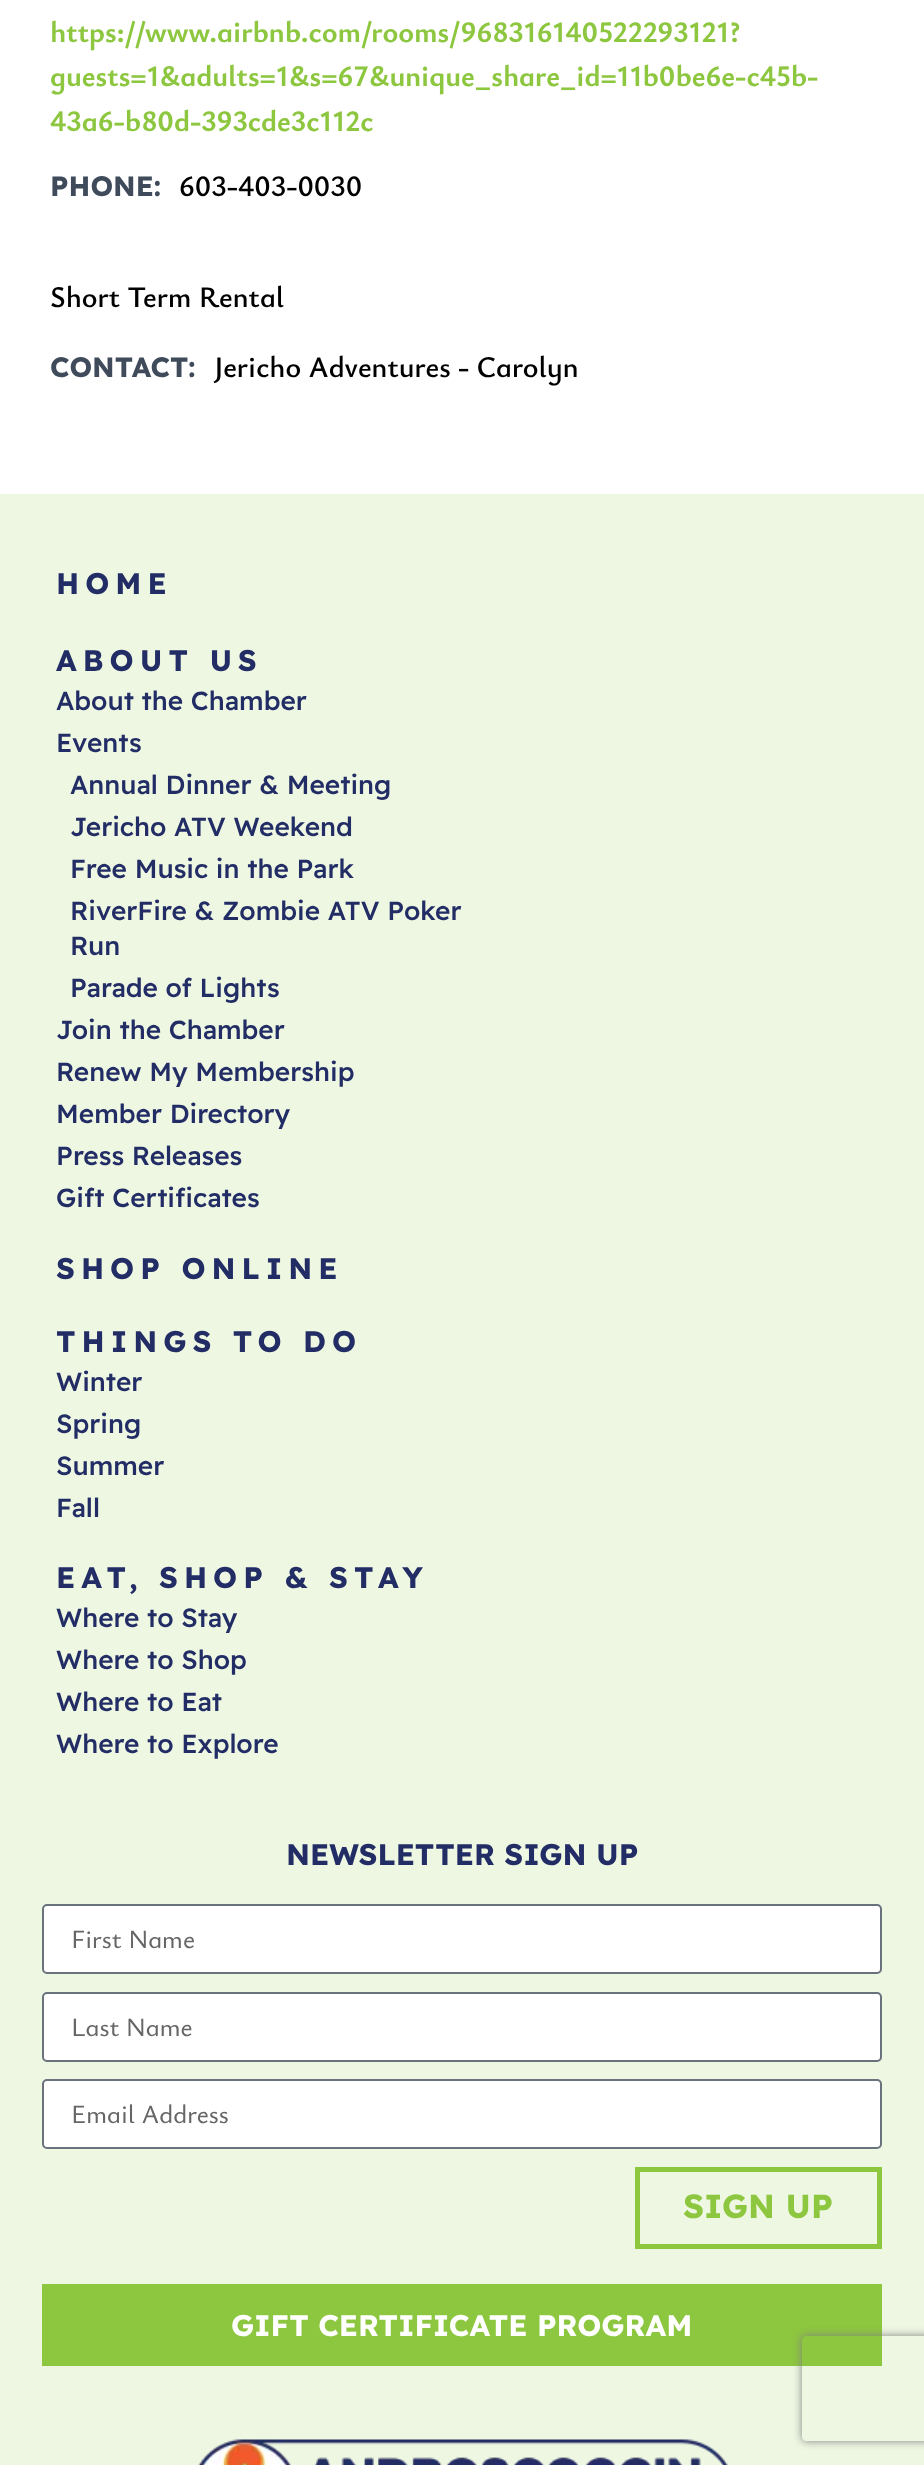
<svg xmlns="http://www.w3.org/2000/svg" width="924" height="2465" viewBox="0 0 924 2465">
  <defs>
    <clipPath id="clip1"><path d="M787 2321H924V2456H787ZM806 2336H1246C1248 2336 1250 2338 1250 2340V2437C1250 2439 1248 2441 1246 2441H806C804 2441 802 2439 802 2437V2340C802 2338 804 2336 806 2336Z" clip-rule="evenodd"/></clipPath>
  </defs>
  <rect width="100%" height="100%" fill="rgb(255,255,255)"/>
  <g font-family="Ysabeau Infant" font-size="29.75" font-weight="bold" fill="rgb(141,198,63)">
    <text>
      <tspan x="50" y="42">https://www.airbnb.com/rooms/968316140522293121?</tspan>
      <tspan x="50" y="86">guests=1&amp;adults=1&amp;s=67&amp;unique_share_id=11b0be6e-c45b-</tspan>
      <tspan x="50" y="131">43a6-b80d-393cde3c112c</tspan>
    </text>
  </g>
  <text x="50" y="196" font-family="Readex Pro" font-size="28" font-weight="bold" fill="rgb(63,75,91)">PHONE:</text>
  <g font-family="Ysabeau Infant" font-size="29.75" font-weight="600" fill="rgb(0,0,0)">
    <text x="179" y="196">603-403-0030</text>
    <text x="50" y="307">Short Term Rental</text>
  </g>
  <text x="50" y="377" font-family="Readex Pro" font-size="28" font-weight="bold" fill="rgb(63,75,91)">CONTACT:</text>
  <text x="214" y="377" font-family="Ysabeau Infant" font-size="29.75" font-weight="600" fill="rgb(0,0,0)">Jericho Adventures - Carolyn</text>
  <rect x="0" y="494" width="924" height="1971" fill="rgb(238,247,226)"/>
  <g font-family="Readex Pro" font-size="29.75" font-weight="bold" letter-spacing="6" fill="rgb(35,45,101)">
    <text x="56" y="594">HOME</text>
    <text x="56" y="671">ABOUT US</text>
  </g>
  <g font-family="Readex Pro" font-size="26.25" font-weight="500" fill="rgb(35,45,101)">
    <text>
      <tspan x="56" y="710">About the Chamber</tspan>
      <tspan x="56" y="752">Events</tspan>
    </text>
    <text>
      <tspan x="70" y="794">Annual Dinner &amp; Meeting</tspan>
      <tspan x="70" y="836">Jericho ATV Weekend</tspan>
      <tspan x="70" y="878">Free Music in the Park</tspan>
      <tspan x="70" y="920">RiverFire &amp; Zombie ATV Poker</tspan>
      <tspan x="70" y="955">Run</tspan>
      <tspan x="70" y="997">Parade of Lights</tspan>
    </text>
    <text>
      <tspan x="56" y="1039">Join the Chamber</tspan>
      <tspan x="56" y="1081">Renew My Membership</tspan>
      <tspan x="56" y="1123">Member Directory</tspan>
      <tspan x="56" y="1165">Press Releases</tspan>
      <tspan x="56" y="1207">Gift Certificates</tspan>
    </text>
  </g>
  <g font-family="Readex Pro" font-size="29.75" font-weight="bold" letter-spacing="6" fill="rgb(35,45,101)">
    <text x="56" y="1279">SHOP ONLINE</text>
    <text x="56" y="1352">THINGS TO DO</text>
  </g>
  <g font-family="Readex Pro" font-size="26.25" font-weight="500" fill="rgb(35,45,101)">
    <text>
      <tspan x="56" y="1391">Winter</tspan>
      <tspan x="56" y="1433">Spring</tspan>
      <tspan x="56" y="1475">Summer</tspan>
      <tspan x="56" y="1517">Fall</tspan>
    </text>
  </g>
  <text x="56" y="1588" font-family="Readex Pro" font-size="29.75" font-weight="bold" letter-spacing="6" fill="rgb(35,45,101)">EAT, SHOP &amp; STAY</text>
  <g font-family="Readex Pro" font-size="26.25" font-weight="500" fill="rgb(35,45,101)">
    <text>
      <tspan x="56" y="1627">Where to Stay</tspan>
      <tspan x="56" y="1669">Where to Shop</tspan>
      <tspan x="56" y="1711">Where to Eat</tspan>
      <tspan x="56" y="1753">Where to Explore</tspan>
    </text>
  </g>
  <text x="286" y="1865" font-family="Readex Pro" font-size="29.75" font-weight="bold" fill="rgb(35,45,101)">NEWSLETTER SIGN UP</text>
  <rect x="43" y="1905" width="838" height="68" rx="4" fill="rgb(255,255,255)" stroke="rgb(105,114,125)" stroke-width="2"/>
  <text x="71" y="1948" font-family="Ysabeau Infant" font-size="26.25" font-weight="500" fill="rgb(102,102,102)">First Name</text>
  <rect x="43" y="1993" width="838" height="68" rx="4" fill="rgb(255,255,255)" stroke="rgb(105,114,125)" stroke-width="2"/>
  <text x="71" y="2036" font-family="Ysabeau Infant" font-size="26.25" font-weight="500" fill="rgb(102,102,102)">Last Name</text>
  <rect x="43" y="2080" width="838" height="68" rx="4" fill="rgb(255,255,255)" stroke="rgb(105,114,125)" stroke-width="2"/>
  <text x="71" y="2123" font-family="Ysabeau Infant" font-size="26.25" font-weight="500" fill="rgb(102,102,102)">Email Address</text>
  <rect x="637.5" y="2169.5" width="242" height="77" fill="none" stroke="rgb(141,198,63)" stroke-width="5"/>
  <text x="683" y="2218" font-family="Readex Pro" font-size="33.25" font-weight="bold" fill="rgb(141,198,63)">SIGN UP</text>
  <rect x="42" y="2284" width="840" height="82" fill="rgb(141,198,63)"/>
  <text x="231" y="2336" font-family="Readex Pro" font-size="29.75" font-weight="bold" fill="rgb(255,255,255)">GIFT CERTIFICATE PROGRAM</text>
  <image x="198" y="2439" width="530" height="26" href="pic1.png"/>
  <g clip-path="url(#clip1)">
    <rect x="802" y="2336" width="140" height="105" rx="4" fill="rgb(128,128,128)" filter="blur(4.5px)"/>
  </g>
</svg>
